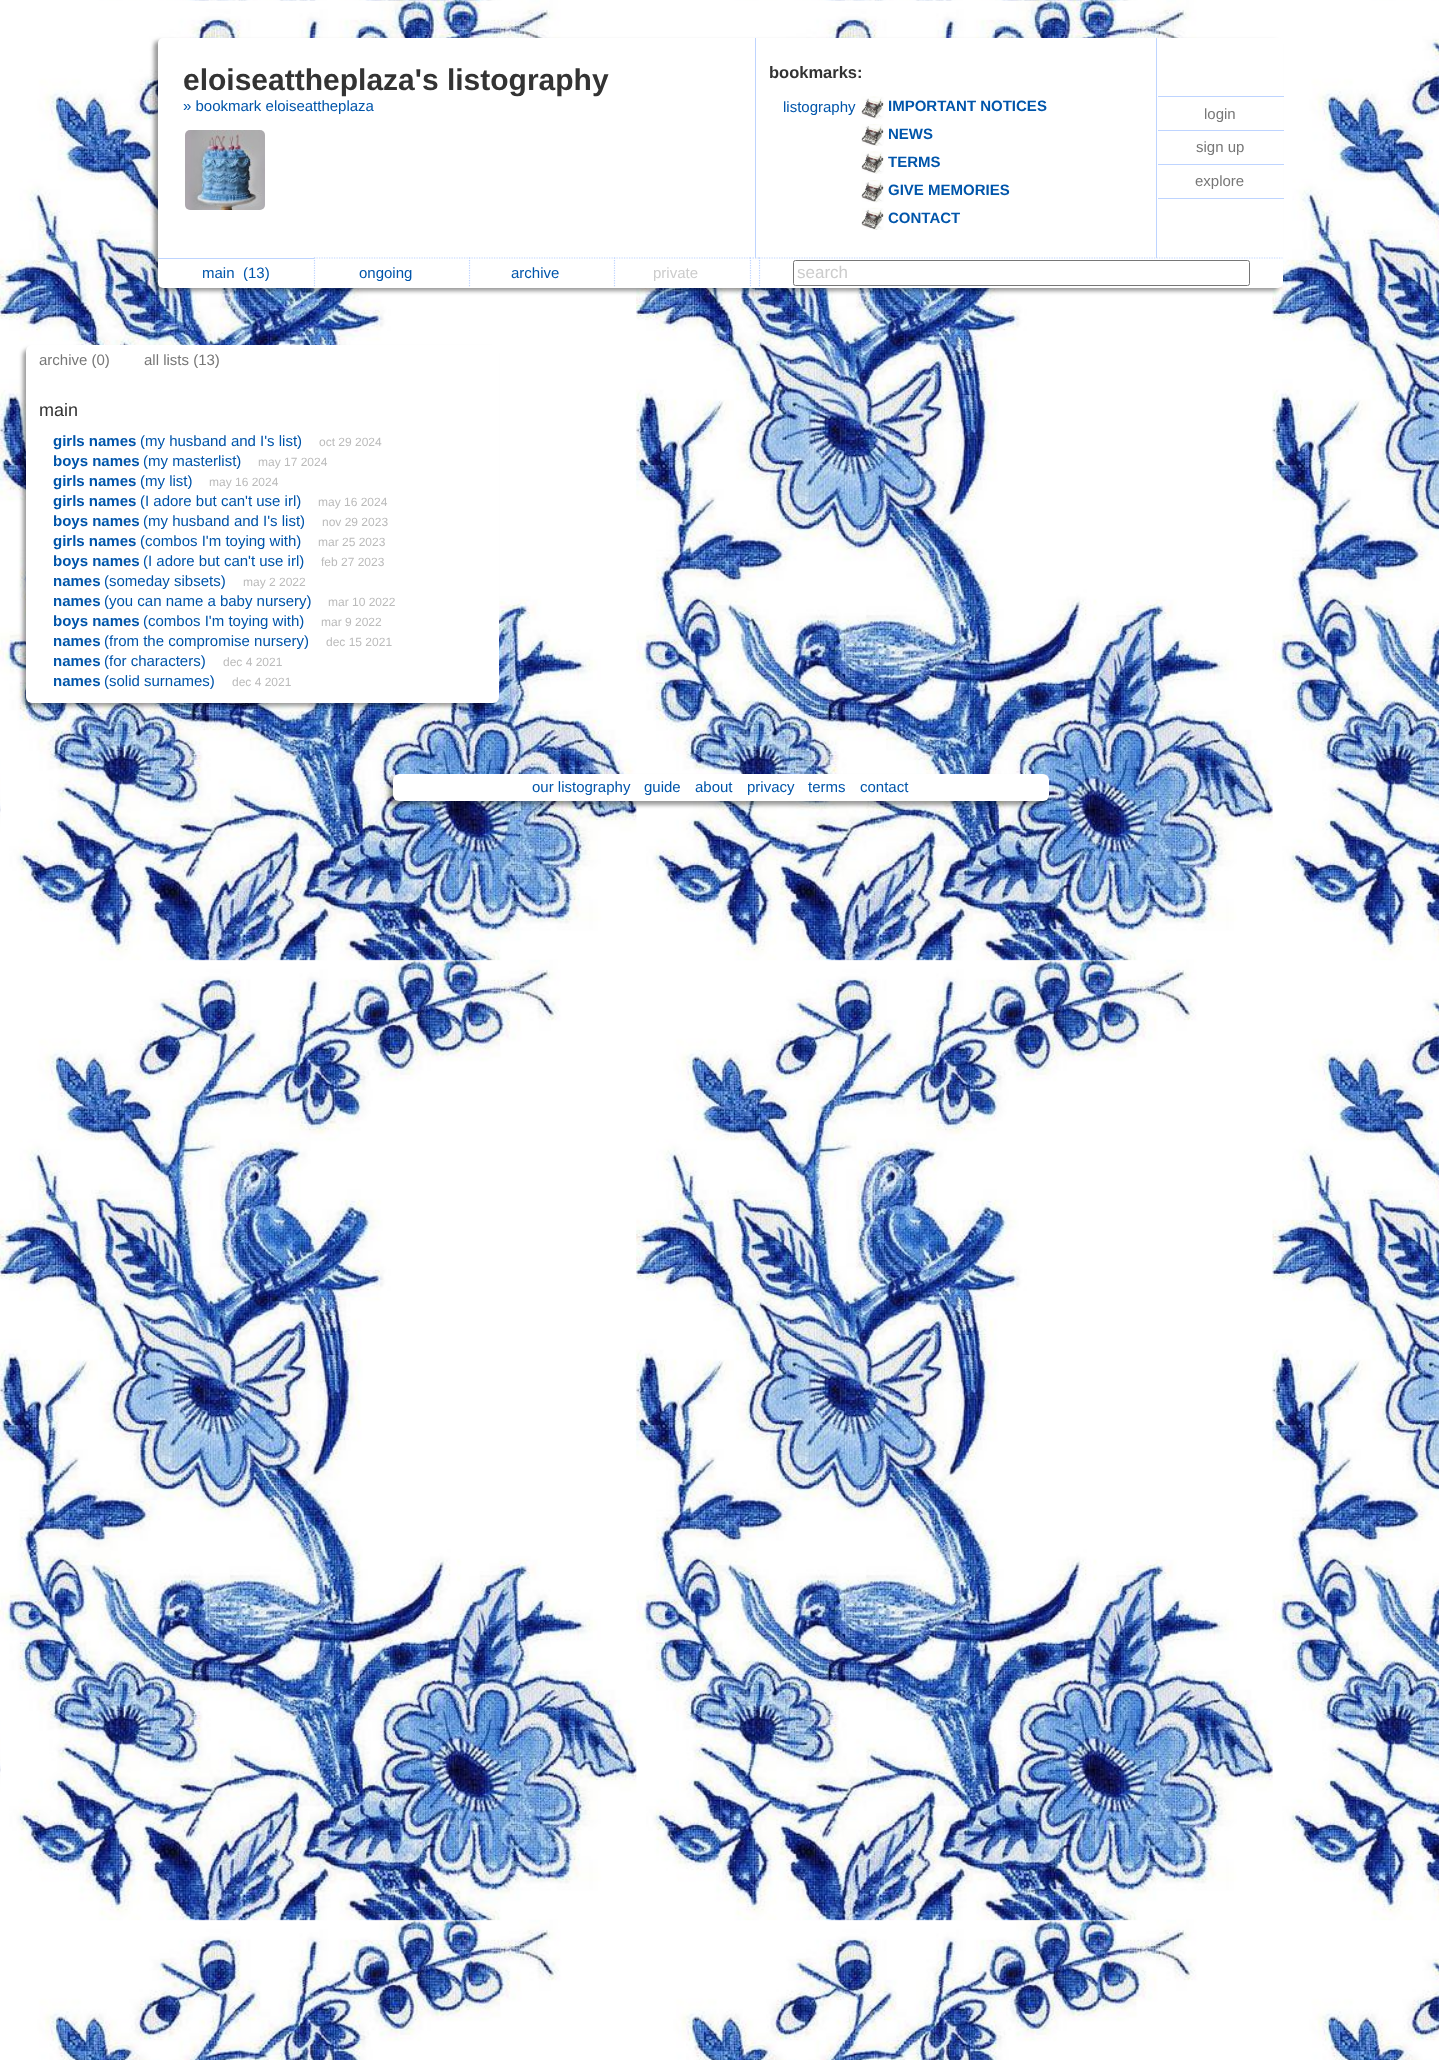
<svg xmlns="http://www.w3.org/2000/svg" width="1439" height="2060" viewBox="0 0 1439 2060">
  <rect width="100%" height="100%" fill="rgb(255,255,255)"/>
  <image x="0" y="0" width="1439" height="2060" href="pic1.png"/>
  <rect x="154" y="41" width="1125" height="250" rx="5" fill="rgba(0,0,0,0.4)" filter="blur(2px)"/>
  <rect x="158" y="38" width="1125" height="250" rx="5" fill="rgb(255,255,255)"/>
  <rect x="755" y="38" width="1" height="220" fill="rgb(190,212,255)"/>
  <text x="183" y="90" font-family="Liberation Sans" font-size="30" font-weight="bold" fill="rgb(51,51,51)">eloiseattheplaza's listography</text>
  <text x="183" y="111" font-family="Liberation Sans" font-size="15" fill="rgb(0,85,170)">» bookmark eloiseattheplaza</text>
  <image x="185" y="130" width="80" height="80" href="pic2.png"/>
  <text x="769" y="78" font-family="Liberation Sans" font-size="16.5" font-weight="bold" fill="rgb(51,51,51)">bookmarks:</text>
  <text x="783" y="112" font-family="Liberation Sans" font-size="15" fill="rgb(0,85,170)">listography</text>
  <image x="861" y="96" width="23" height="23" href="pic3.png"/>
  <text x="888" y="111" font-family="Liberation Sans" font-size="15" font-weight="bold" fill="rgb(0,85,170)">IMPORTANT NOTICES</text>
  <image x="861" y="124" width="23" height="22" href="pic4.png"/>
  <text x="888" y="139" font-family="Liberation Sans" font-size="15" font-weight="bold" fill="rgb(0,85,170)">NEWS</text>
  <image x="861" y="151" width="23" height="23" href="pic3.png"/>
  <text x="888" y="167" font-family="Liberation Sans" font-size="15" font-weight="bold" fill="rgb(0,85,170)">TERMS</text>
  <image x="861" y="180" width="23" height="23" href="pic5.png"/>
  <text x="888" y="195" font-family="Liberation Sans" font-size="15" font-weight="bold" fill="rgb(0,85,170)">GIVE MEMORIES</text>
  <image x="861" y="207" width="23" height="23" href="pic6.png"/>
  <text x="888" y="223" font-family="Liberation Sans" font-size="15" font-weight="bold" fill="rgb(0,85,170)">CONTACT</text>
  <rect x="1156" y="38" width="1" height="220" fill="rgb(190,212,255)"/>
  <rect x="1158" y="96" width="126" height="1" fill="rgb(190,212,255)"/>
  <text x="1204" y="119" font-family="Liberation Sans" font-size="15" fill="rgb(119,119,119)">login</text>
  <rect x="1158" y="130" width="126" height="1" fill="rgb(190,212,255)"/>
  <text x="1196" y="152" font-family="Liberation Sans" font-size="15" fill="rgb(119,119,119)">sign up</text>
  <rect x="1158" y="164" width="126" height="1" fill="rgb(190,212,255)"/>
  <rect x="1158" y="198" width="126" height="1" fill="rgb(190,212,255)"/>
  <text x="1195" y="186" font-family="Liberation Sans" font-size="15" fill="rgb(119,119,119)">explore</text>
  <rect x="158" y="258" width="156" height="1" fill="rgb(190,212,255)"/>
  <g font-family="Liberation Sans" font-size="15" fill="rgb(0,85,170)">
    <text x="202" y="278">main</text>
    <text x="243" y="278">(13)</text>
  </g>
  <path d="M314 258H469" fill="none" stroke="rgb(190,212,255)" stroke-width="1.2" stroke-dasharray="1.25 1.25"/>
  <path d="M314.5 257.5V287.5" fill="none" stroke="rgb(190,212,255)" stroke-width="1.2" stroke-dasharray="1.25 1.25"/>
  <text x="359" y="278" font-family="Liberation Sans" font-size="15" fill="rgb(0,85,170)">ongoing</text>
  <path d="M469 258H614" fill="none" stroke="rgb(190,212,255)" stroke-width="1.2" stroke-dasharray="1.25 1.25"/>
  <path d="M469.5 257.5V287.5" fill="none" stroke="rgb(190,212,255)" stroke-width="1.2" stroke-dasharray="1.25 1.25"/>
  <text x="511" y="278" font-family="Liberation Sans" font-size="15" fill="rgb(0,85,170)">archive</text>
  <path d="M614 258H750" fill="none" stroke="rgb(190,212,255)" stroke-width="1.2" stroke-dasharray="1.25 1.25"/>
  <path d="M614.5 257.5V287.5" fill="none" stroke="rgb(190,212,255)" stroke-width="1.2" stroke-dasharray="1.25 1.25"/>
  <text x="653" y="278" font-family="Liberation Sans" font-size="15" fill="rgb(204,204,204)">private</text>
  <path d="M750 258H751M752.5 258H754M755 258H756.5M757.5 258H759" fill="none" stroke="rgb(190,212,255)" stroke-width="1.2"/>
  <path d="M750.5 257.5V287.5" fill="none" stroke="rgb(190,212,255)" stroke-width="1.2" stroke-dasharray="1.25 1.25"/>
  <path d="M759 258H1282.5" fill="none" stroke="rgb(190,212,255)" stroke-width="1.2" stroke-dasharray="1.25 1.25"/>
  <path d="M759.5 257.5V287.5" fill="none" stroke="rgb(190,212,255)" stroke-width="1.2" stroke-dasharray="1.25 1.25"/>
  <rect x="793.5" y="260.5" width="456" height="25" rx="2" fill="none" stroke="rgb(118,118,118)"/>
  <text x="797" y="278" font-family="Liberation Sans" font-size="17" fill="rgb(204,204,204)">search</text>
  <rect x="23" y="349" width="472" height="357" rx="6" fill="rgba(0,0,0,0.4)" filter="blur(2px)"/>
  <rect x="26" y="345" width="473" height="358" rx="6" fill="rgb(255,255,255)"/>
  <g font-family="Liberation Sans" font-size="15" fill="rgb(119,119,119)">
    <text x="39" y="365">archive (0)</text>
    <text x="144" y="365">all lists (13)</text>
  </g>
  <text x="39" y="416" font-family="Liberation Sans" font-size="18" fill="rgb(51,51,51)">main</text>
  <text x="53" y="446" font-family="Liberation Sans" font-size="15" font-weight="bold" fill="rgb(0,85,170)">girls names</text>
  <text x="140" y="446" font-family="Liberation Sans" font-size="15" fill="rgb(0,85,170)">(my husband and I's list)</text>
  <text x="319" y="446" font-family="Liberation Sans" font-size="12" fill="rgb(187,187,187)">oct 29 2024</text>
  <text x="53" y="466" font-family="Liberation Sans" font-size="15" font-weight="bold" fill="rgb(0,85,170)">boys names</text>
  <text x="143" y="466" font-family="Liberation Sans" font-size="15" fill="rgb(0,85,170)">(my masterlist)</text>
  <text x="258" y="466" font-family="Liberation Sans" font-size="12" fill="rgb(187,187,187)">may 17 2024</text>
  <text x="53" y="486" font-family="Liberation Sans" font-size="15" font-weight="bold" fill="rgb(0,85,170)">girls names</text>
  <text x="140" y="486" font-family="Liberation Sans" font-size="15" fill="rgb(0,85,170)">(my list)</text>
  <text x="209" y="486" font-family="Liberation Sans" font-size="12" fill="rgb(187,187,187)">may 16 2024</text>
  <text x="53" y="506" font-family="Liberation Sans" font-size="15" font-weight="bold" fill="rgb(0,85,170)">girls names</text>
  <text x="140" y="506" font-family="Liberation Sans" font-size="15" fill="rgb(0,85,170)">(I adore but can't use irl)</text>
  <text x="318" y="506" font-family="Liberation Sans" font-size="12" fill="rgb(187,187,187)">may 16 2024</text>
  <text x="53" y="526" font-family="Liberation Sans" font-size="15" font-weight="bold" fill="rgb(0,85,170)">boys names</text>
  <text x="143" y="526" font-family="Liberation Sans" font-size="15" fill="rgb(0,85,170)">(my husband and I's list)</text>
  <text x="322" y="526" font-family="Liberation Sans" font-size="12" fill="rgb(187,187,187)">nov 29 2023</text>
  <text x="53" y="546" font-family="Liberation Sans" font-size="15" font-weight="bold" fill="rgb(0,85,170)">girls names</text>
  <text x="140" y="546" font-family="Liberation Sans" font-size="15" fill="rgb(0,85,170)">(combos I'm toying with)</text>
  <text x="318" y="546" font-family="Liberation Sans" font-size="12" fill="rgb(187,187,187)">mar 25 2023</text>
  <text x="53" y="566" font-family="Liberation Sans" font-size="15" font-weight="bold" fill="rgb(0,85,170)">boys names</text>
  <text x="143" y="566" font-family="Liberation Sans" font-size="15" fill="rgb(0,85,170)">(I adore but can't use irl)</text>
  <text x="321" y="566" font-family="Liberation Sans" font-size="12" fill="rgb(187,187,187)">feb 27 2023</text>
  <text x="53" y="586" font-family="Liberation Sans" font-size="15" font-weight="bold" fill="rgb(0,85,170)">names</text>
  <text x="104" y="586" font-family="Liberation Sans" font-size="15" fill="rgb(0,85,170)">(someday sibsets)</text>
  <text x="243" y="586" font-family="Liberation Sans" font-size="12" fill="rgb(187,187,187)">may 2 2022</text>
  <text x="53" y="606" font-family="Liberation Sans" font-size="15" font-weight="bold" fill="rgb(0,85,170)">names</text>
  <text x="104" y="606" font-family="Liberation Sans" font-size="15" fill="rgb(0,85,170)">(you can name a baby nursery)</text>
  <text x="328" y="606" font-family="Liberation Sans" font-size="12" fill="rgb(187,187,187)">mar 10 2022</text>
  <text x="53" y="626" font-family="Liberation Sans" font-size="15" font-weight="bold" fill="rgb(0,85,170)">boys names</text>
  <text x="143" y="626" font-family="Liberation Sans" font-size="15" fill="rgb(0,85,170)">(combos I'm toying with)</text>
  <text x="321" y="626" font-family="Liberation Sans" font-size="12" fill="rgb(187,187,187)">mar 9 2022</text>
  <text x="53" y="646" font-family="Liberation Sans" font-size="15" font-weight="bold" fill="rgb(0,85,170)">names</text>
  <text x="104" y="646" font-family="Liberation Sans" font-size="15" fill="rgb(0,85,170)">(from the compromise nursery)</text>
  <text x="326" y="646" font-family="Liberation Sans" font-size="12" fill="rgb(187,187,187)">dec 15 2021</text>
  <text x="53" y="666" font-family="Liberation Sans" font-size="15" font-weight="bold" fill="rgb(0,85,170)">names</text>
  <text x="104" y="666" font-family="Liberation Sans" font-size="15" fill="rgb(0,85,170)">(for characters)</text>
  <text x="223" y="666" font-family="Liberation Sans" font-size="12" fill="rgb(187,187,187)">dec 4 2021</text>
  <text x="53" y="686" font-family="Liberation Sans" font-size="15" font-weight="bold" fill="rgb(0,85,170)">names</text>
  <text x="104" y="686" font-family="Liberation Sans" font-size="15" fill="rgb(0,85,170)">(solid surnames)</text>
  <text x="232" y="686" font-family="Liberation Sans" font-size="12" fill="rgb(187,187,187)">dec 4 2021</text>
  <rect x="389" y="778" width="656" height="27" rx="6" fill="rgba(0,0,0,0.4)" filter="blur(2px)"/>
  <rect x="393" y="774" width="656" height="27" rx="6" fill="rgb(255,255,255)"/>
  <g font-family="Liberation Sans" font-size="15" fill="rgb(0,85,170)">
    <text x="532" y="792">our listography</text>
    <text x="644" y="792">guide</text>
    <text x="695" y="792">about</text>
    <text x="747" y="792">privacy</text>
    <text x="808" y="792">terms</text>
    <text x="860" y="792">contact</text>
  </g>
</svg>
